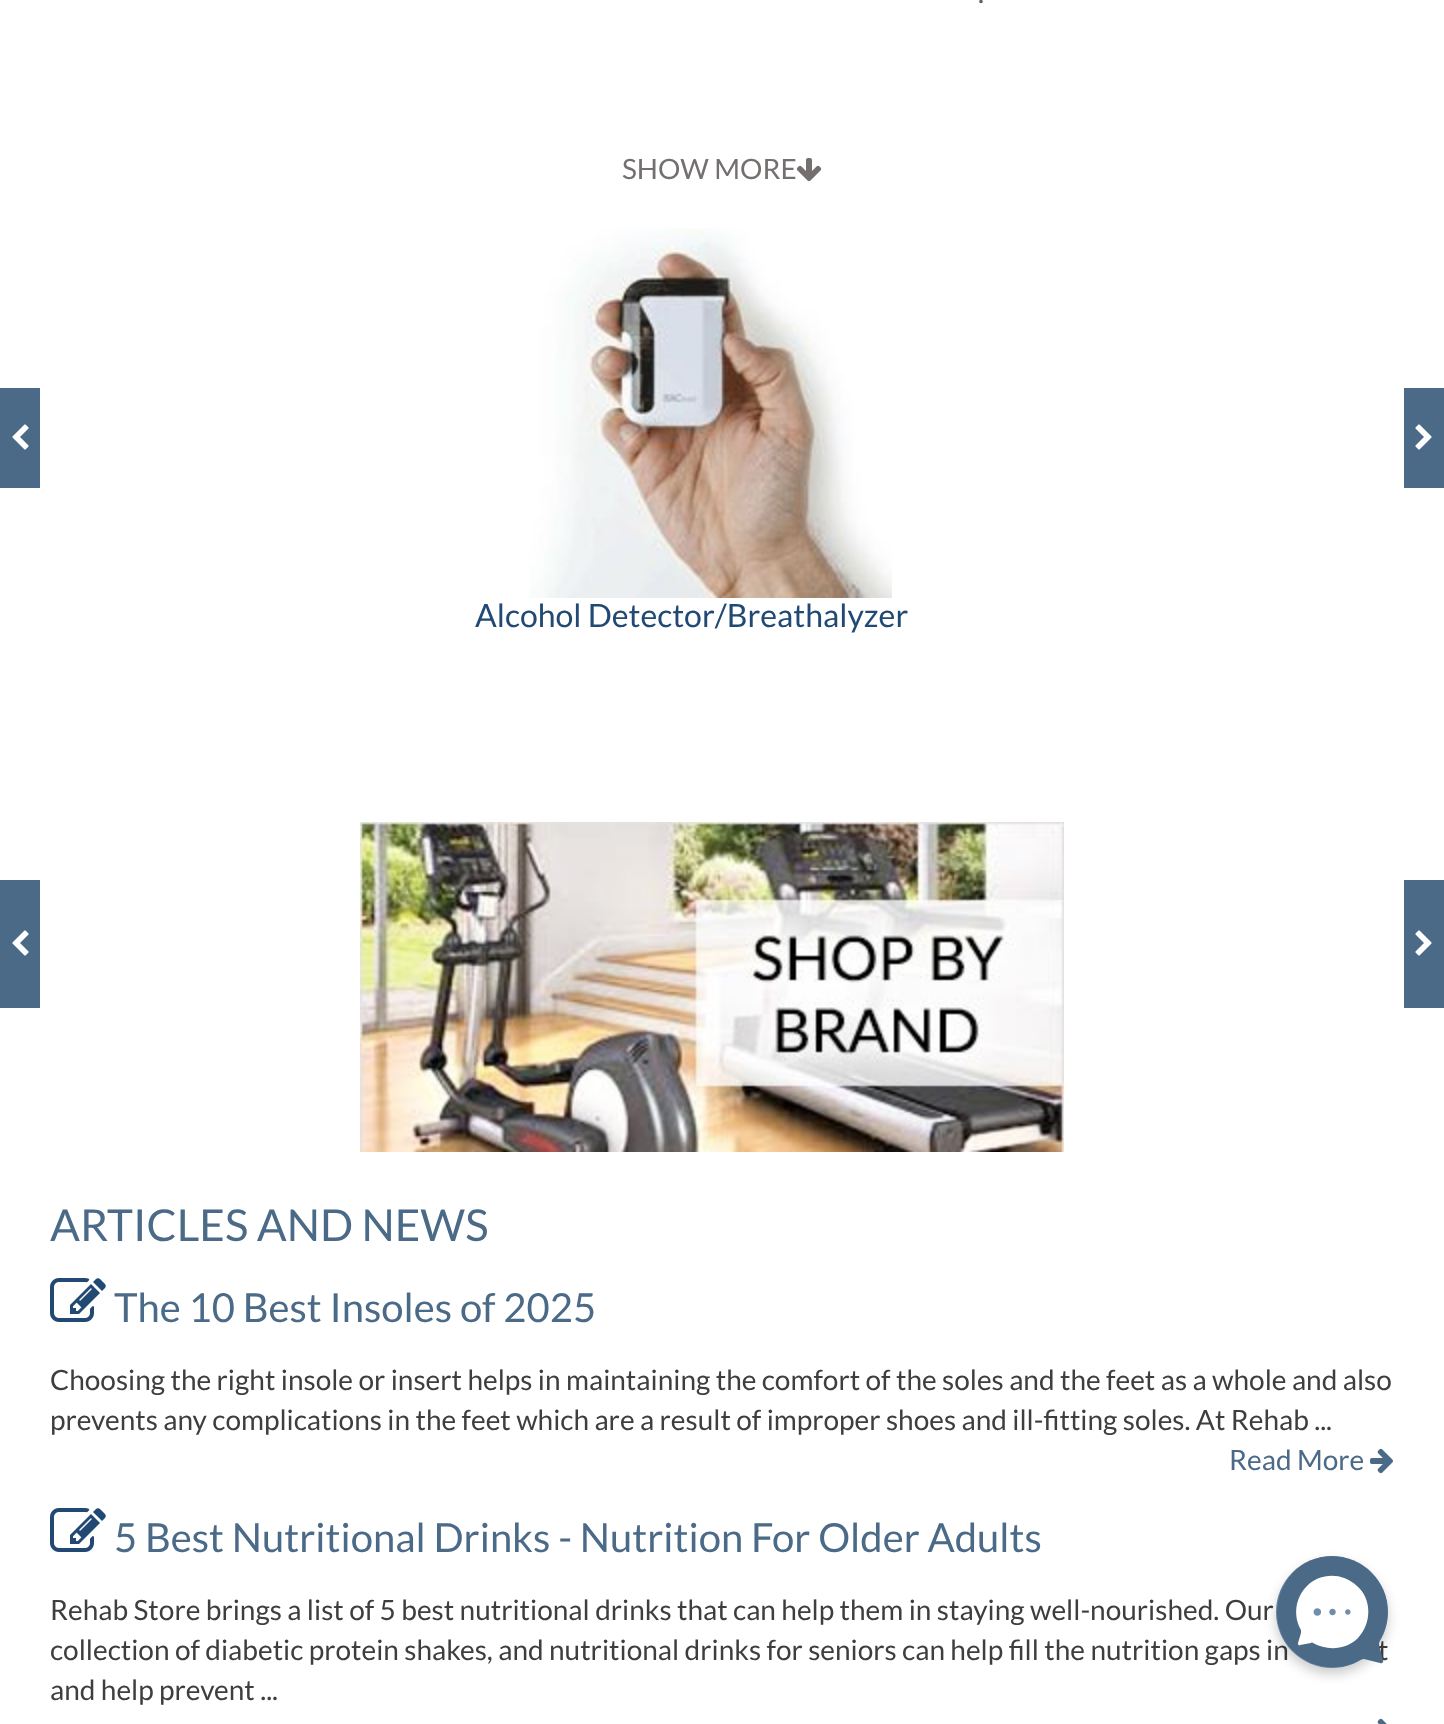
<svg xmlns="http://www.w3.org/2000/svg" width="1444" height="1724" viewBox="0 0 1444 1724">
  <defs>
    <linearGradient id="g1" gradientUnits="userSpaceOnUse" x1="1276" y1="1668" x2="1388" y2="1556"><stop offset="0" stop-color="rgb(112,141,169)"/><stop offset="1" stop-color="rgb(75,106,135)"/></linearGradient>
  </defs>
  <rect width="100%" height="100%" fill="rgb(255,255,255)"/>
  <text x="978" y="3" font-family="Lato" font-size="28" fill="rgb(88,98,97)">.</text>
  <text x="622" y="179" font-family="Lato" font-size="28" fill="rgb(116,112,112)">SHOW MORE</text>
  <image x="796" y="158" width="26" height="24" href="pic1.png"/>
  <rect x="0" y="388" width="40" height="100" fill="rgb(75,106,135)"/>
  <image x="12" y="424" width="17" height="26" href="pic2.png"/>
  <rect x="1404" y="388" width="40" height="100" fill="rgb(75,106,135)"/>
  <image x="1415" y="424" width="17" height="26" href="pic3.png"/>
  <image x="529" y="228" width="363" height="370" href="pic4.png"/>
  <text x="475" y="627" font-family="Lato" font-size="32" fill="rgb(34,73,115)">Alcohol Detector/Breathalyzer</text>
  <rect x="0" y="880" width="40" height="128" fill="rgb(75,106,135)"/>
  <image x="12" y="930" width="17" height="26" href="pic2.png"/>
  <image x="360" y="822" width="704" height="330" href="pic5.png"/>
  <rect x="1404" y="880" width="40" height="128" fill="rgb(75,106,135)"/>
  <image x="1415" y="930" width="17" height="26" href="pic3.png"/>
  <text x="50" y="1241" font-family="Lato" font-size="44" fill="rgb(75,106,135)">ARTICLES AND NEWS</text>
  <image x="50" y="1278" width="56" height="44" href="pic6.png"/>
  <text x="114" y="1322" font-family="Lato" font-size="40" fill="rgb(75,106,135)">The 10 Best Insoles of 2025</text>
  <g font-family="Lato" font-size="28" fill="rgb(62,62,62)">
    <text>
      <tspan x="50" y="1390">Choosing the right insole or insert helps in maintaining the comfort of the soles and the feet as a whole and also</tspan>
      <tspan x="50" y="1430">prevents any complications in the feet which are a result of improper shoes and ill-fitting soles. At Rehab ...</tspan>
    </text>
  </g>
  <text x="1229" y="1470" font-family="Lato" font-size="28" fill="rgb(75,106,135)">Read More</text>
  <image x="1370" y="1448" width="23" height="26" href="pic7.png"/>
  <image x="50" y="1508" width="56" height="44" href="pic6.png"/>
  <text x="114" y="1552" font-family="Lato" font-size="40" fill="rgb(75,106,135)">5 Best Nutritional Drinks - Nutrition For Older Adults</text>
  <g font-family="Lato" font-size="28" fill="rgb(62,62,62)">
    <text>
      <tspan x="50" y="1620">Rehab Store brings a list of 5 best nutritional drinks that can help them in staying well-nourished. Our</tspan>
      <tspan x="50" y="1660">collection of diabetic protein shakes, and nutritional drinks for seniors can help fill the nutrition gaps in</tspan>
    </text>
    <text x="1378" y="1660">t</text>
    <text x="50" y="1700">and help prevent ...</text>
  </g>
  <image x="1377" y="1718" width="10" height="6" href="pic8.png"/>
  <rect x="1276" y="1562" width="112" height="112" rx="56" fill="rgba(0,0,0,0.2)" filter="blur(6px)"/>
  <circle cx="1332" cy="1612" r="56" fill="url(#g1)"/>
  <path d="M1371 1573C1349 1551 1313 1551 1292 1574C1272 1596 1272 1630 1293 1651C1311 1669 1339 1672 1360 1660C1362 1659 1363 1659 1364 1659L1380 1663C1382 1664 1384 1662 1383 1660L1379 1645C1379 1643 1379 1642 1380 1640C1392 1619 1390 1591 1371 1573Z" fill="rgb(75,106,135)"/>
  <path d="M1358 1638C1372 1623 1372 1599 1357 1586C1342 1572 1320 1573 1307 1586C1295 1598 1293 1616 1301 1630C1301 1631 1301 1632 1301 1633L1298 1643C1298 1645 1299 1646 1300 1645L1311 1643C1312 1642 1313 1643 1313 1643C1327 1651 1346 1650 1358 1638Z" fill="rgb(255,255,255)"/>
  <image x="1313" y="1608" width="38" height="8" href="pic9.png"/>
</svg>
